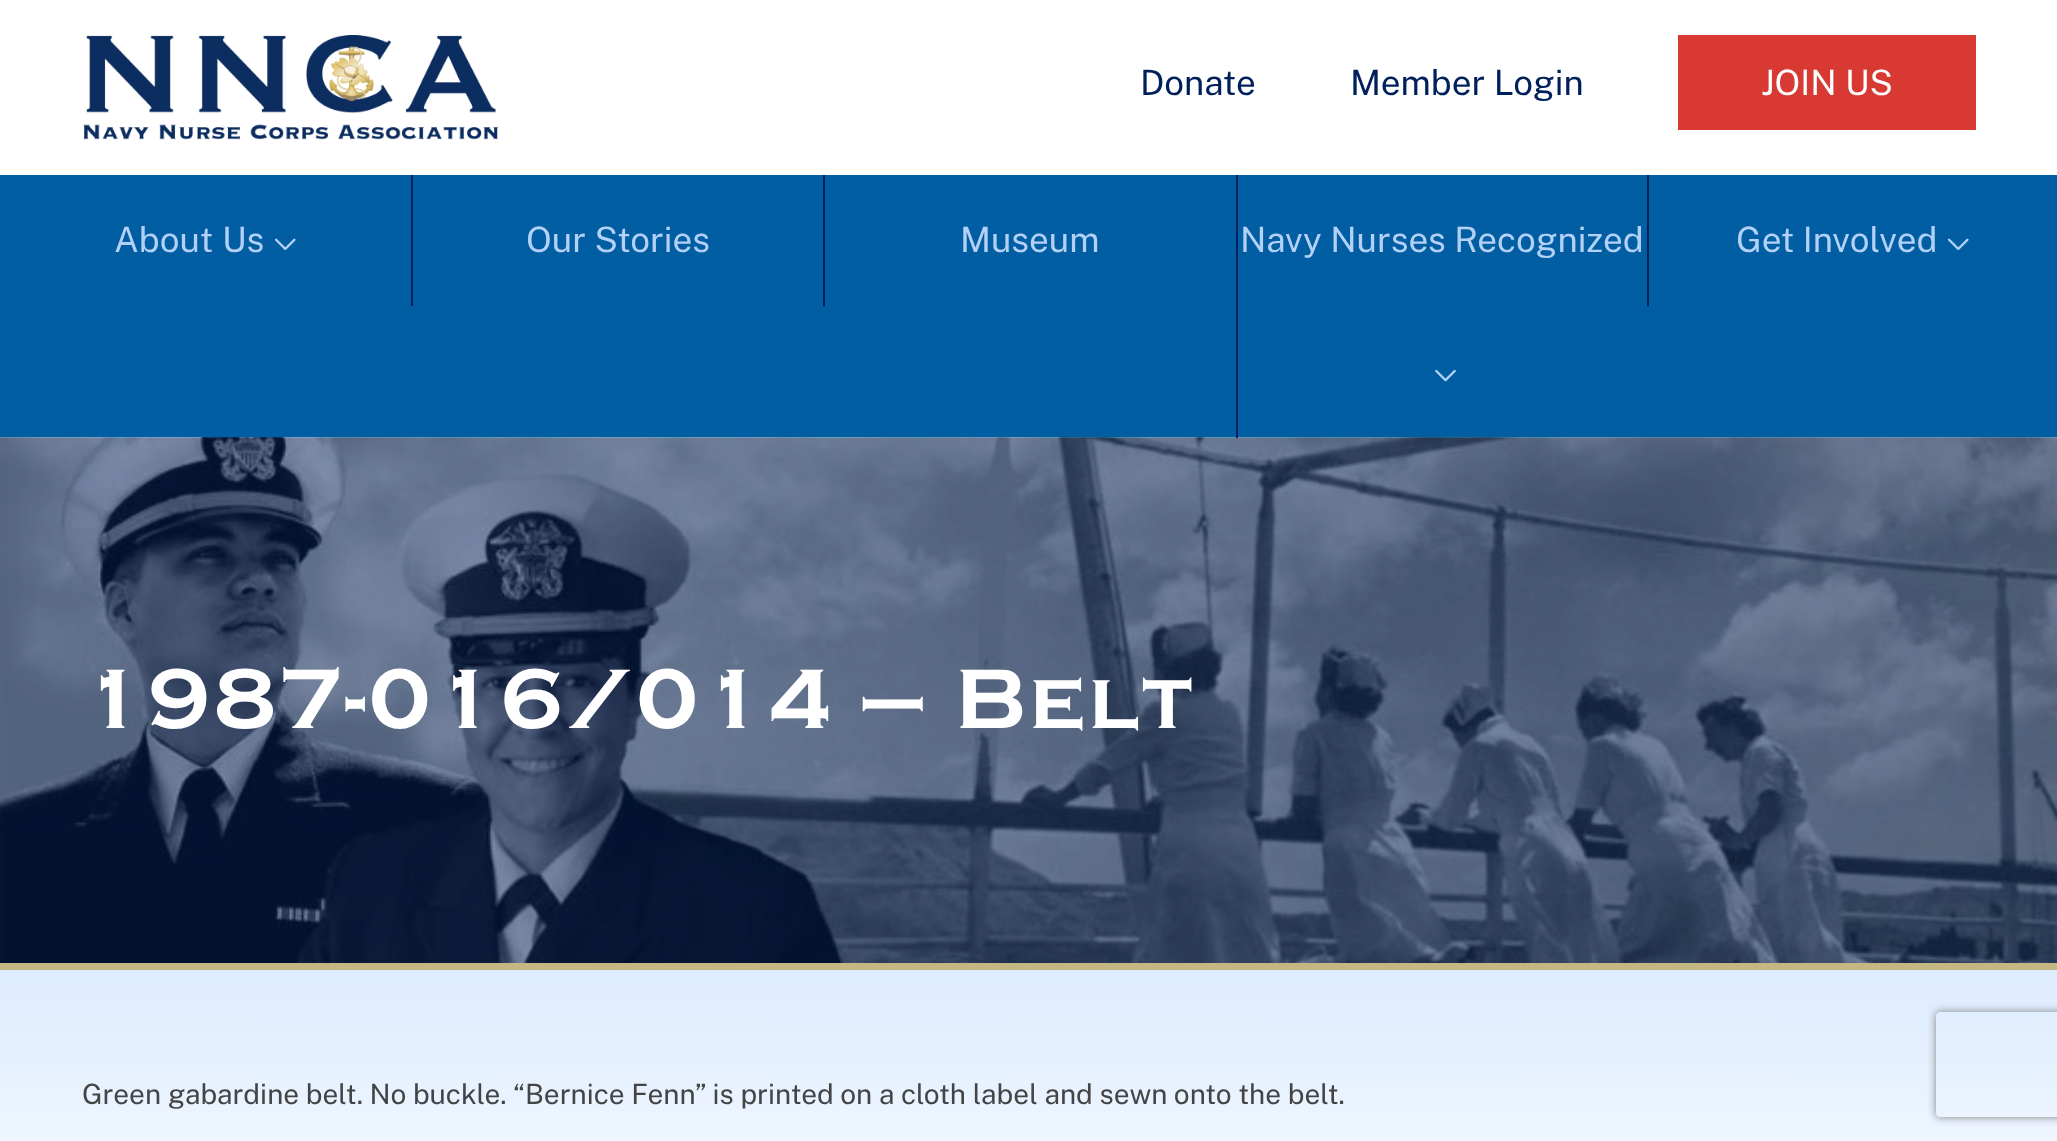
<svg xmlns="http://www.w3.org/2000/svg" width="2057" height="1141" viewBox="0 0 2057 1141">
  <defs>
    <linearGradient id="g1" gradientUnits="userSpaceOnUse" x1="1029" y1="970" x2="1029" y2="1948"><stop offset="0" stop-color="rgb(221,236,255)"/><stop offset="0.36" stop-color="rgb(255,255,255)"/></linearGradient>
    <clipPath id="clip1"><path d="M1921 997H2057V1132H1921ZM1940 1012H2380C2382 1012 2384 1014 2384 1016V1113C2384 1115 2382 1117 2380 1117H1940C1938 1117 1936 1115 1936 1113V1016C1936 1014 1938 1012 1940 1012Z" clip-rule="evenodd"/></clipPath>
  </defs>
  <rect width="100%" height="100%" fill="rgb(255,255,255)"/>
  <image x="83" y="35" width="416" height="105" href="pic1.png"/>
  <g font-family="Public Sans" font-size="35" fill="rgb(0,32,91)">
    <text x="1140" y="95">Donate</text>
    <text x="1350" y="95">Member Login</text>
  </g>
  <rect x="1678" y="35" width="298" height="95" fill="rgb(216,57,51)"/>
  <text x="1761" y="95" font-family="Public Sans" font-size="35" fill="rgb(255,255,255)">JOIN US</text>
  <rect x="0" y="175" width="2057" height="263" fill="rgb(1,94,163)"/>
  <text x="114" y="252" font-family="Public Sans" font-size="35" fill="rgb(179,209,247)">About Us</text>
  <image x="274" y="238" width="22" height="13" href="pic2.png"/>
  <rect x="411" y="175" width="2" height="131" fill="rgb(0,32,91)"/>
  <text x="526" y="252" font-family="Public Sans" font-size="35" fill="rgb(179,209,247)">Our Stories</text>
  <rect x="823" y="175" width="2" height="131" fill="rgb(0,32,91)"/>
  <text x="960" y="252" font-family="Public Sans" font-size="35" fill="rgb(179,209,247)">Museum</text>
  <image x="0" y="437" width="2057" height="526" href="pic4.png"/>
  <rect x="1236" y="175" width="2" height="263" fill="rgb(0,32,91)"/>
  <text x="1240" y="252" font-family="Public Sans" font-size="35" fill="rgb(179,209,247)">Navy Nurses Recognized</text>
  <image x="1435" y="369" width="21" height="13" href="pic3.png"/>
  <rect x="1647" y="175" width="2" height="131" fill="rgb(0,32,91)"/>
  <text x="1736" y="252" font-family="Public Sans" font-size="35" fill="rgb(179,209,247)">Get Involved</text>
  <image x="1947" y="238" width="22" height="13" href="pic2.png"/>
  <rect x="0" y="963" width="2057" height="7" fill="rgb(197,183,131)"/>
  <text x="82" y="728" font-family="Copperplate" font-size="87.5" font-weight="bold" letter-spacing="3.5" fill="rgb(255,255,255)">1987-016/014 – Belt</text>
  <rect x="0" y="970" width="2057" height="171" fill="url(#g1)"/>
  <text x="82" y="1104" font-family="Public Sans" font-size="28" fill="rgb(68,68,68)">Green gabardine belt. No buckle. “Bernice Fenn” is printed on a cloth label and sewn onto the belt.</text>
  <g clip-path="url(#clip1)">
    <rect x="1936" y="1012" width="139" height="105" rx="4" fill="rgb(128,128,128)" filter="blur(4.5px)"/>
  </g>
</svg>
